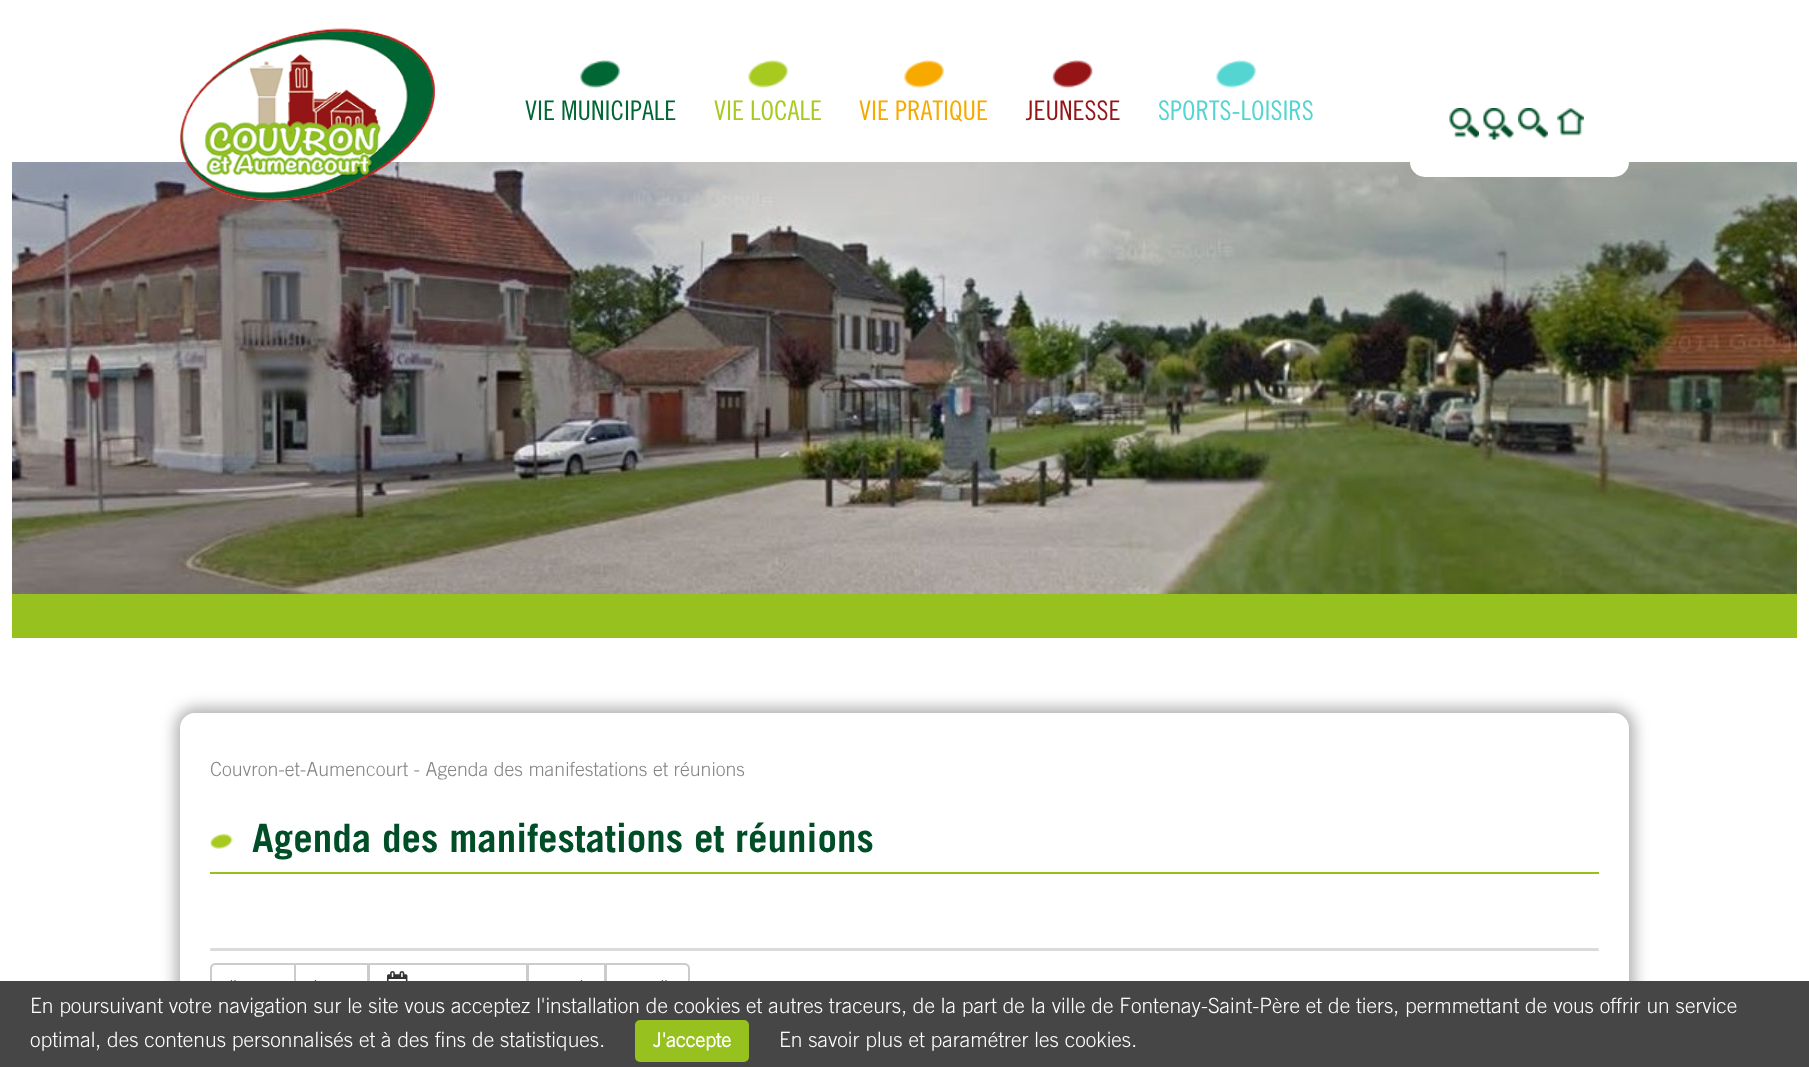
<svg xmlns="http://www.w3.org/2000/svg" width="1809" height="1067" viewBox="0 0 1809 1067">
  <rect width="100%" height="100%" fill="rgb(255,255,255)"/>
  <rect x="12" y="594" width="1785" height="44" fill="rgb(150,193,30)"/>
  <image x="12" y="162" width="1785" height="432" href="pic11.png"/>
  <image x="180" y="28" width="255" height="173" href="pic1.png"/>
  <image x="579" y="60" width="42" height="29" href="pic2.png"/>
  <text x="525" y="120" font-family="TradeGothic" font-size="27" font-weight="500" fill="rgb(0,102,51)">VIE MUNICIPALE</text>
  <image x="747" y="60" width="42" height="29" href="pic3.png"/>
  <text x="714" y="120" font-family="TradeGothic" font-size="27" font-weight="500" fill="rgb(167,202,33)">VIE LOCALE</text>
  <image x="903" y="60" width="42" height="29" href="pic4.png"/>
  <text x="859" y="120" font-family="TradeGothic" font-size="27" font-weight="500" fill="rgb(247,169,0)">VIE PRATIQUE</text>
  <image x="1052" y="60" width="41" height="29" href="pic5.png"/>
  <text x="1026" y="120" font-family="TradeGothic" font-size="27" font-weight="500" fill="rgb(149,21,23)">JEUNESSE</text>
  <image x="1215" y="60" width="41" height="29" href="pic6.png"/>
  <text x="1158" y="120" font-family="TradeGothic" font-size="27" font-weight="500" fill="rgb(84,213,210)">SPORTS-LOISIRS</text>
  <rect x="1410" y="114" width="219" height="63" rx="15" fill="rgb(255,255,255)"/>
  <image x="1449" y="108" width="30" height="30" href="pic7.png"/>
  <image x="1483" y="108" width="31" height="32" href="pic8.png"/>
  <image x="1518" y="108" width="30" height="31" href="pic9.png"/>
  <image x="1557" y="108" width="27" height="28" href="pic10.png"/>
  <rect x="176" y="708" width="1458" height="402" rx="20" fill="rgb(173,173,173)" filter="blur(7.5px)"/>
  <rect x="180" y="713" width="1449" height="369" rx="15" fill="rgb(255,255,255)"/>
  <text x="210" y="776" font-family="TradeGothic" font-size="19.5" font-weight="300" fill="rgb(133,133,133)">Couvron-et-Aumencourt - Agenda des manifestations et réunions</text>
  <image x="210" y="834" width="23" height="15" href="pic12.png"/>
  <rect x="210" y="872" width="1389" height="2" fill="rgb(150,193,30)"/>
  <text x="252" y="852" font-family="TradeGothic" font-size="39" font-weight="bold" fill="rgb(0,78,39)">Agenda des manifestations et réunions</text>
  <rect x="210" y="948" width="1389" height="3" rx="1.5" fill="rgb(219,219,219)"/>
  <path d="M215 964H295V1004H215C213 1004 211 1002 211 1000V968C211 966 213 964 215 964Z" fill="none" stroke="rgb(204,204,204)" stroke-width="2"/>
  <image x="230" y="980" width="6" height="1" href="pic13.png"/>
  <rect x="295" y="964" width="73" height="40" fill="none" stroke="rgb(204,204,204)" stroke-width="2"/>
  <image x="314" y="980" width="3" height="1" href="pic14.png"/>
  <rect x="369" y="964" width="158" height="40" fill="none" stroke="rgb(204,204,204)" stroke-width="2"/>
  <image x="387" y="971" width="21" height="10" href="pic15.png"/>
  <rect x="528" y="964" width="77" height="40" fill="none" stroke="rgb(204,204,204)" stroke-width="2"/>
  <image x="580" y="980" width="3" height="1" href="pic16.png"/>
  <path d="M606 964H685C687 964 689 966 689 968V1000C689 1002 687 1004 685 1004H606Z" fill="rgb(255,255,255)" stroke="rgb(204,204,204)" stroke-width="2"/>
  <image x="661" y="980" width="6" height="1" href="pic17.png"/>
  <rect x="0" y="981" width="1809" height="86" fill="rgb(70,70,70)"/>
  <g font-family="TradeGothic" font-size="21" font-weight="300" fill="rgb(255,255,255)">
    <text>
      <tspan x="30" y="1013">En poursuivant votre navigation sur le site vous acceptez l'installation de cookies et autres traceurs, de la part de la ville de Fontenay-Saint-Père et de tiers, permmettant de vous offrir un service</tspan>
      <tspan x="30" y="1047">optimal, des contenus personnalisés et à des fins de statistiques.</tspan>
    </text>
  </g>
  <rect x="635" y="1020" width="114" height="42" rx="5" fill="rgb(150,193,30)"/>
  <text x="653" y="1047" font-family="'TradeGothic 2'" font-size="19.5" font-weight="bold" fill="rgb(255,255,255)">J'accepte</text>
  <text x="779" y="1047" font-family="TradeGothic" font-size="21" font-weight="300" fill="rgb(255,255,255)">En savoir plus et paramétrer les cookies.</text>
</svg>
